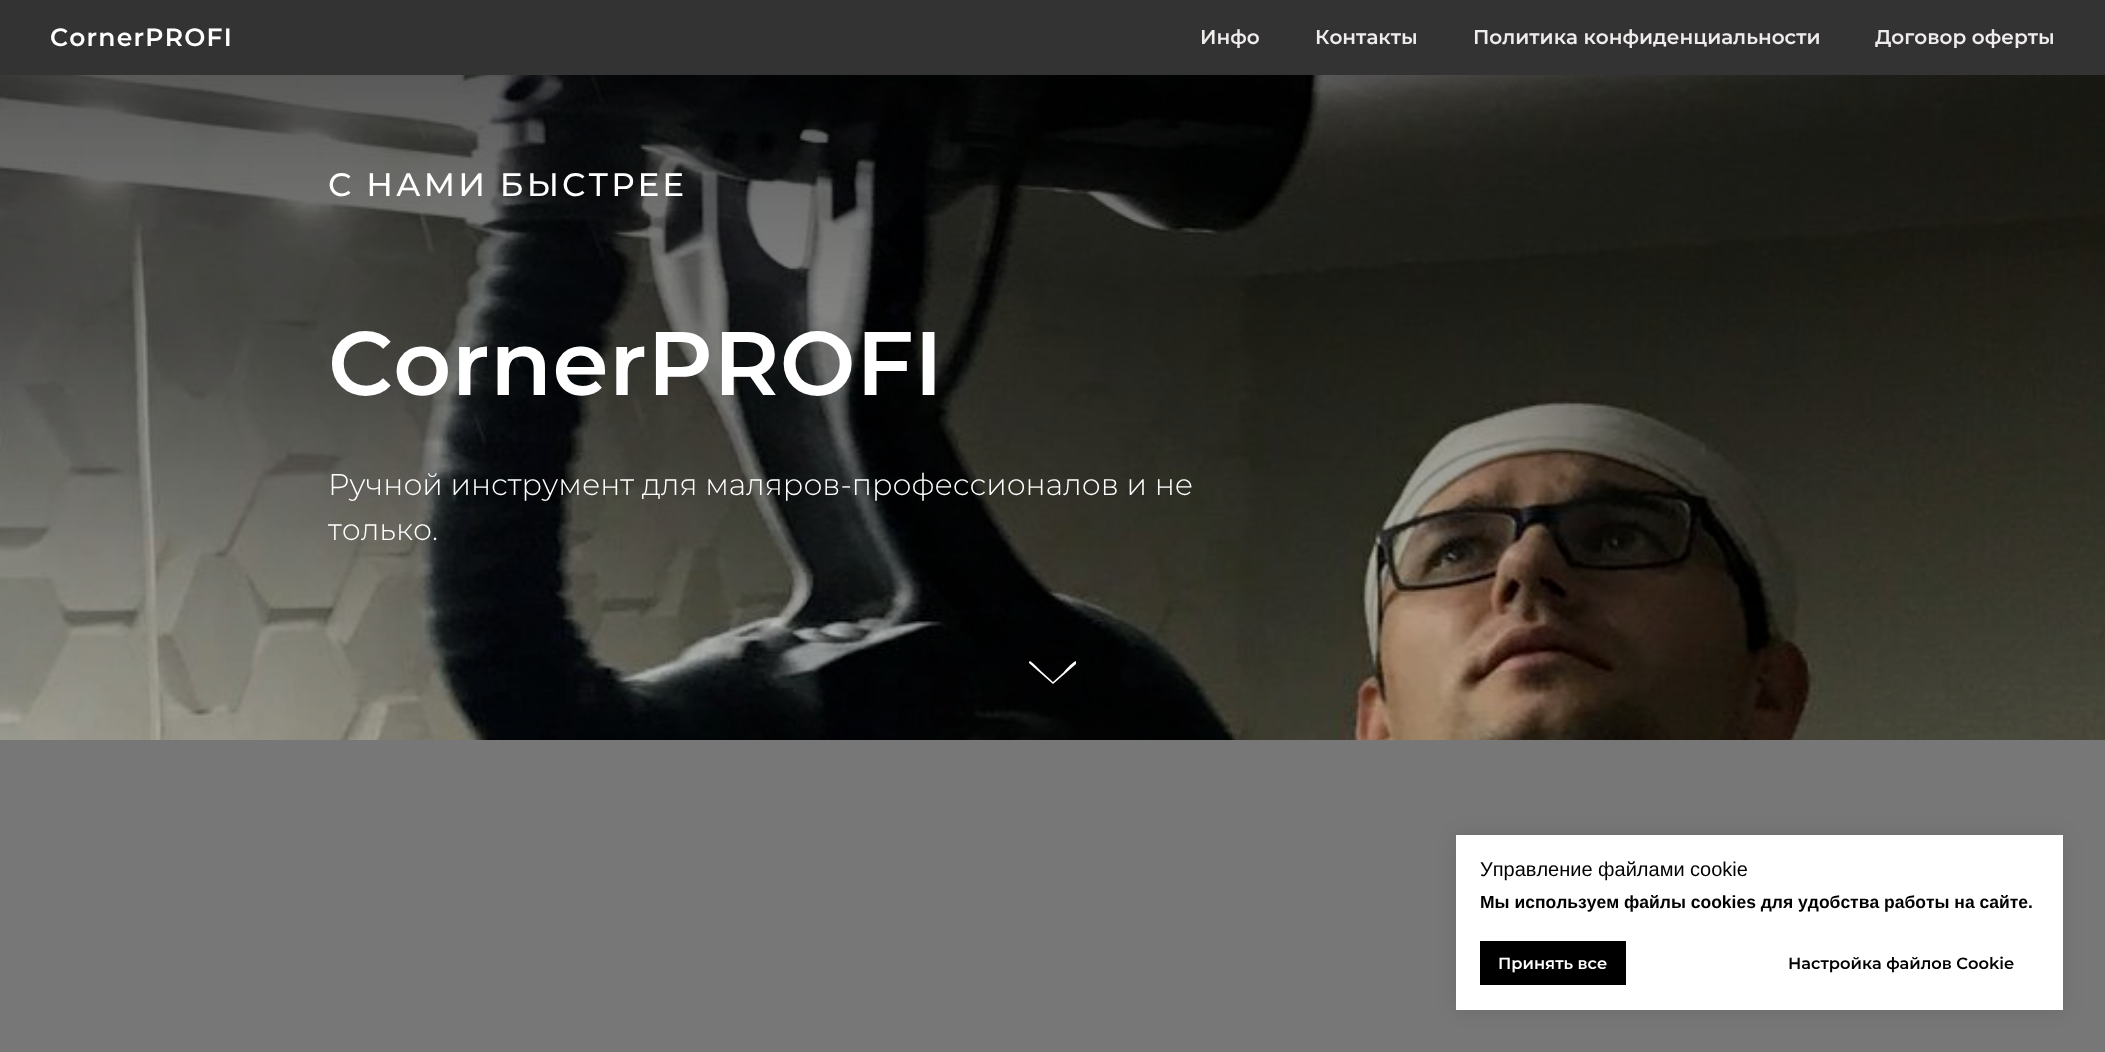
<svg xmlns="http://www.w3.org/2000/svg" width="2105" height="1052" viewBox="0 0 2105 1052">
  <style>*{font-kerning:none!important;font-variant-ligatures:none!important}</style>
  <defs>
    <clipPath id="clip1"><rect x="1029" y="661" width="47" height="24"/></clipPath>
  </defs>
  <rect width="100%" height="100%" fill="rgb(119,119,119)"/>
  <rect x="0" y="0" width="2105" height="75" fill="rgb(51,51,51)"/>
  <text x="50" y="46" font-family="Montserrat" font-size="25" font-weight="600" letter-spacing="1.25" fill="rgb(255,255,255)">CornerPROFI</text>
  <g font-family="Montserrat" font-size="20" font-weight="600" fill="rgb(240,236,236)">
    <text x="1200" y="44">Инфо</text>
    <text x="1315" y="44">Контакты</text>
    <text x="1473" y="44">Политика конфиденциальности</text>
    <text x="1875" y="44">Договор оферты</text>
  </g>
  <image x="0" y="75" width="2105" height="665" href="pic1.png"/>
  <text x="328" y="196" font-family="Montserrat" font-size="32.5" font-weight="500" letter-spacing="3.1" fill="rgb(255,255,255)">С НАМИ БЫСТРЕЕ</text>
  <text x="328" y="395" font-family="Montserrat" font-size="90" font-weight="600" letter-spacing="0.6" fill="rgb(255,255,255)">CornerPROFI</text>
  <g font-family="Montserrat" font-size="30" font-weight="300" fill="rgb(255,255,255)">
    <text>
      <tspan x="328" y="495">Ручной инструмент для маляров-профессионалов и не</tspan>
      <tspan x="328" y="540">только.</tspan>
    </text>
  </g>
  <g clip-path="url(#clip1)">
    <path d="M1053 684L1029 663C1028 663 1029 662 1030 661C1031 661 1040 670 1042 672L1053 682L1064 672C1065 670 1074 661 1076 661C1077 661 1077 663 1077 663Z" fill="rgb(255,255,255)"/>
  </g>
  <rect x="1456" y="835" width="607" height="175" fill="rgba(0,0,0,0.1)" filter="blur(9.5px)"/>
  <rect x="1456" y="835" width="607" height="175" fill="rgb(255,255,255)"/>
  <text x="1480" y="876" font-family="Liberation Sans" font-size="20" fill="rgb(0,0,0)">Управление файлами cookie</text>
  <text x="1480" y="908" font-family="Liberation Sans" font-size="17.5" font-weight="bold" fill="rgb(0,0,0)">Мы используем файлы cookies для удобства работы на сайте.</text>
  <rect x="1480" y="941" width="146" height="44" fill="rgb(0,0,0)"/>
  <text x="1498" y="969" font-family="Montserrat" font-size="16.25" font-weight="600" fill="rgb(255,255,255)">Принять все</text>
  <text x="1788" y="969" font-family="Montserrat" font-size="16.25" font-weight="600" fill="rgb(0,0,0)">Настройка файлов Cookie</text>
</svg>
